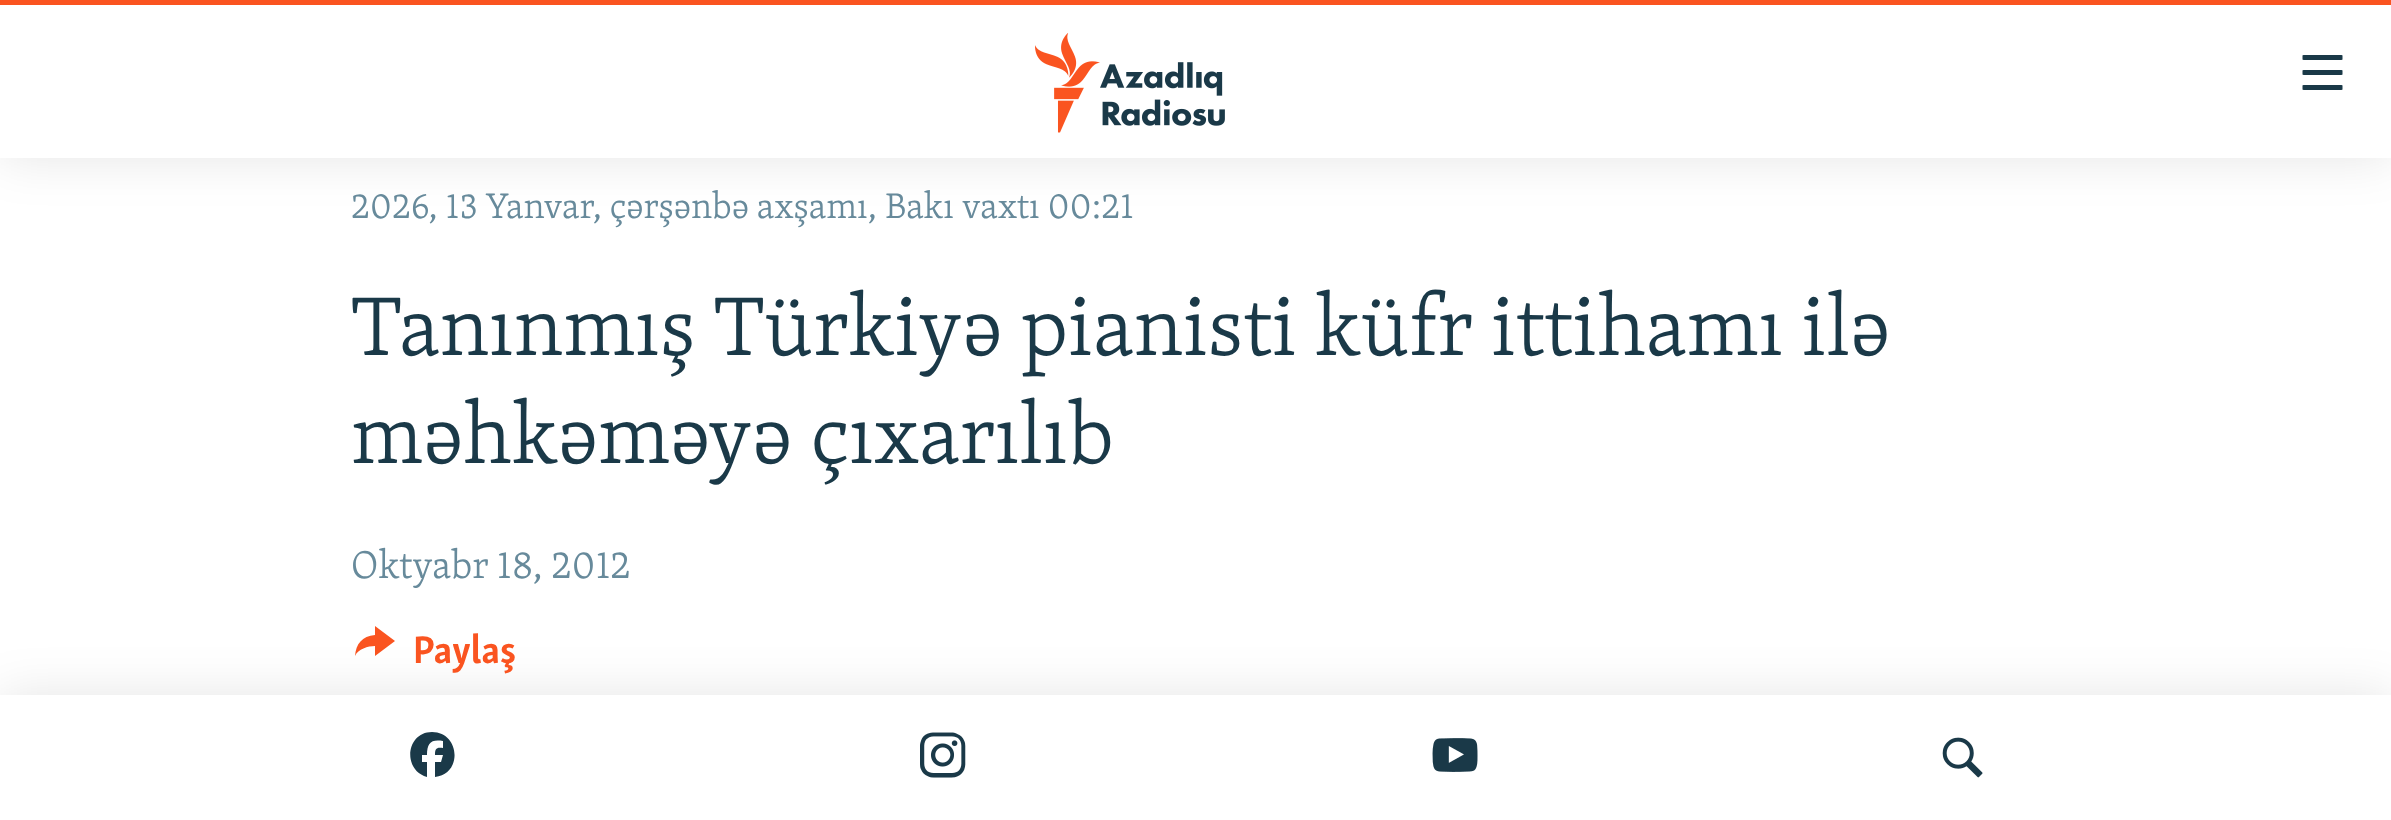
<svg xmlns="http://www.w3.org/2000/svg" width="2391" height="820" viewBox="0 0 2391 820">
  <rect width="100%" height="100%" fill="rgb(255,255,255)"/>
  <rect x="0" y="0" width="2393" height="158" fill="rgba(0,0,0,0.1)" filter="blur(25px)"/>
  <rect x="0" y="5" width="2391" height="153" fill="rgb(255,255,255)"/>
  <rect x="0" y="0" width="2391" height="5" fill="rgb(250,84,32)"/>
  <image x="1035" y="33" width="190" height="100" href="pic1.png"/>
  <image x="2302" y="55" width="41" height="35" href="pic2.png"/>
  <path d="M355 656C356 644 362 636 375 635V626L395 641L375 656V646C368 646 358 649 355 656Z" fill="rgb(250,84,32)"/>
  <rect x="0" y="695" width="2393" height="125" fill="rgba(0,0,0,0.1)" filter="blur(25px)"/>
  <rect x="0" y="695" width="2391" height="125" fill="rgb(255,255,255)"/>
  <path d="M432 732C406 732 402 770 427 777V762H422V755H427C427 743 431 739 443 741V748C436 747 435 749 435 755H443L441 762H435V777C463 774 460 732 432 732Z" fill="rgb(26,57,72)"/>
  <image x="920" y="732" width="46" height="46" href="pic3.png"/>
  <image x="1432" y="738" width="46" height="34" href="pic4.png"/>
  <image x="1942" y="737" width="41" height="41" href="pic5.png"/>
  <text x="351" y="218" font-family="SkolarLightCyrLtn" font-size="36.6" font-weight="300" fill="rgb(103,138,155)">2026, 13 Yanvar, çərşənbə axşamı, Bakı vaxtı 00:21</text>
  <g font-family="SkolarLightCyrLtn" font-size="85.5" font-weight="300" fill="rgb(26,57,72)">
    <text>
      <tspan x="351" y="355">Tanınmış Türkiyə pianisti küfr ittihamı ilə</tspan>
      <tspan x="351" y="463">məhkəməyə çıxarılıb</tspan>
    </text>
  </g>
  <text x="351" y="578" font-family="SkolarLightCyrLtn" font-size="39.5" font-weight="300" fill="rgb(103,138,155)">Oktyabr 18, 2012</text>
  <text x="413" y="663" font-family="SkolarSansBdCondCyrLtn" font-size="39.5" font-weight="bold" fill="rgb(250,84,32)">Paylaş</text>
</svg>
